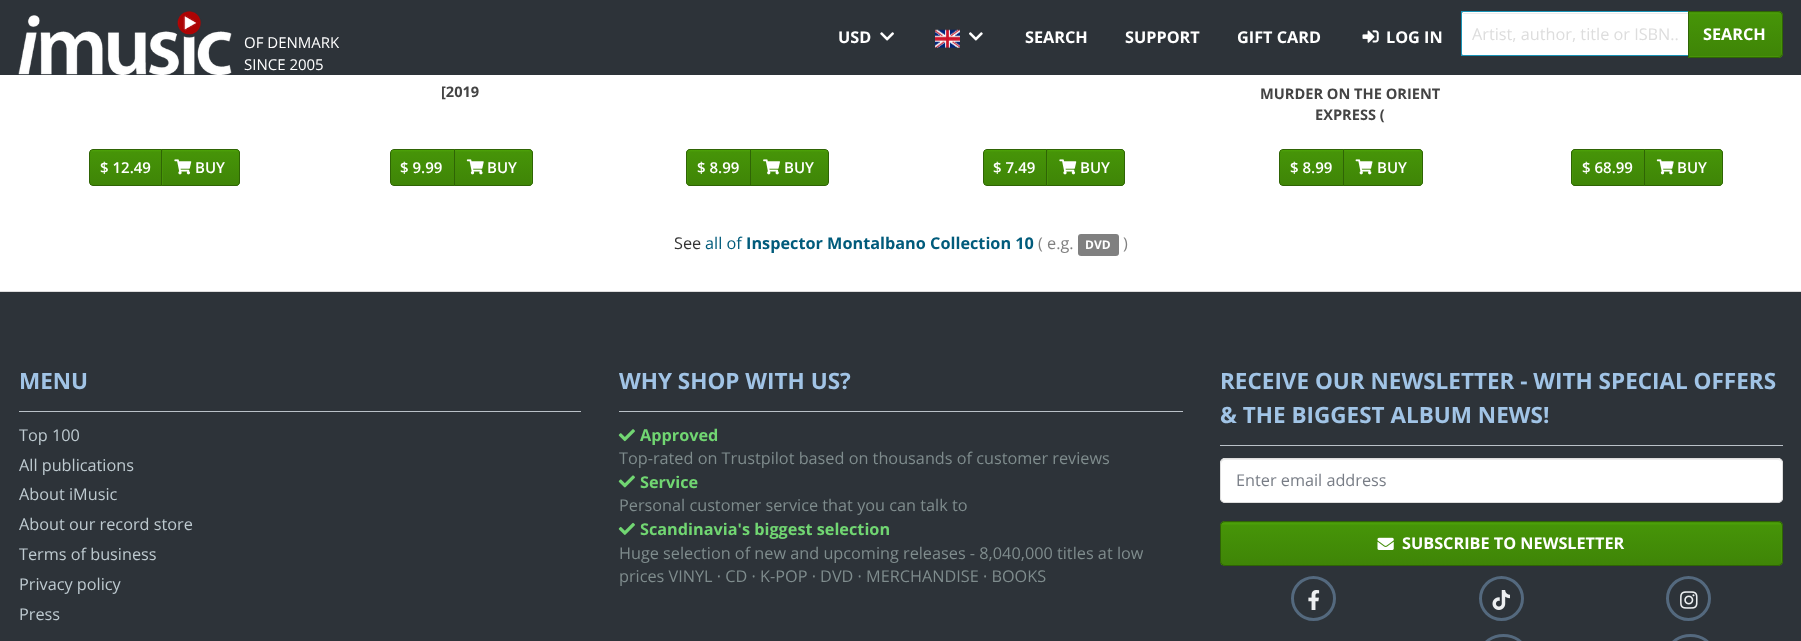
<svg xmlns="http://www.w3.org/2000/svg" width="1801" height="641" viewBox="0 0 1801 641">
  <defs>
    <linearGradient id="g1" gradientUnits="userSpaceOnUse" x1="1735" y1="12" x2="1735" y2="56"><stop offset="0" stop-color="rgb(77,163,9)"/><stop offset="0.06" stop-color="rgb(70,148,8)"/><stop offset="1" stop-color="rgb(63,133,7)"/></linearGradient>
    <linearGradient id="g2" gradientUnits="userSpaceOnUse" x1="125" y1="150" x2="125" y2="185"><stop offset="0" stop-color="rgb(77,163,9)"/><stop offset="0.06" stop-color="rgb(70,148,8)"/><stop offset="1" stop-color="rgb(63,133,7)"/></linearGradient>
    <linearGradient id="g3" gradientUnits="userSpaceOnUse" x1="200" y1="150" x2="200" y2="185"><stop offset="0" stop-color="rgb(77,163,9)"/><stop offset="0.06" stop-color="rgb(70,148,8)"/><stop offset="1" stop-color="rgb(63,133,7)"/></linearGradient>
    <linearGradient id="g4" gradientUnits="userSpaceOnUse" x1="422" y1="150" x2="422" y2="185"><stop offset="0" stop-color="rgb(77,163,9)"/><stop offset="0.06" stop-color="rgb(70,148,8)"/><stop offset="1" stop-color="rgb(63,133,7)"/></linearGradient>
    <linearGradient id="g5" gradientUnits="userSpaceOnUse" x1="493" y1="150" x2="493" y2="185"><stop offset="0" stop-color="rgb(77,163,9)"/><stop offset="0.06" stop-color="rgb(70,148,8)"/><stop offset="1" stop-color="rgb(63,133,7)"/></linearGradient>
    <linearGradient id="g6" gradientUnits="userSpaceOnUse" x1="718" y1="150" x2="718" y2="185"><stop offset="0" stop-color="rgb(77,163,9)"/><stop offset="0.06" stop-color="rgb(70,148,8)"/><stop offset="1" stop-color="rgb(63,133,7)"/></linearGradient>
    <linearGradient id="g7" gradientUnits="userSpaceOnUse" x1="789" y1="150" x2="789" y2="185"><stop offset="0" stop-color="rgb(77,163,9)"/><stop offset="0.06" stop-color="rgb(70,148,8)"/><stop offset="1" stop-color="rgb(63,133,7)"/></linearGradient>
    <linearGradient id="g8" gradientUnits="userSpaceOnUse" x1="1014" y1="150" x2="1014" y2="185"><stop offset="0" stop-color="rgb(77,163,9)"/><stop offset="0.06" stop-color="rgb(70,148,8)"/><stop offset="1" stop-color="rgb(63,133,7)"/></linearGradient>
    <linearGradient id="g9" gradientUnits="userSpaceOnUse" x1="1085" y1="150" x2="1085" y2="185"><stop offset="0" stop-color="rgb(77,163,9)"/><stop offset="0.06" stop-color="rgb(70,148,8)"/><stop offset="1" stop-color="rgb(63,133,7)"/></linearGradient>
    <linearGradient id="g10" gradientUnits="userSpaceOnUse" x1="1311" y1="150" x2="1311" y2="185"><stop offset="0" stop-color="rgb(77,163,9)"/><stop offset="0.06" stop-color="rgb(70,148,8)"/><stop offset="1" stop-color="rgb(63,133,7)"/></linearGradient>
    <linearGradient id="g11" gradientUnits="userSpaceOnUse" x1="1382" y1="150" x2="1382" y2="185"><stop offset="0" stop-color="rgb(77,163,9)"/><stop offset="0.06" stop-color="rgb(70,148,8)"/><stop offset="1" stop-color="rgb(63,133,7)"/></linearGradient>
    <linearGradient id="g12" gradientUnits="userSpaceOnUse" x1="1608" y1="150" x2="1608" y2="185"><stop offset="0" stop-color="rgb(77,163,9)"/><stop offset="0.06" stop-color="rgb(70,148,8)"/><stop offset="1" stop-color="rgb(63,133,7)"/></linearGradient>
    <linearGradient id="g13" gradientUnits="userSpaceOnUse" x1="1683" y1="150" x2="1683" y2="185"><stop offset="0" stop-color="rgb(77,163,9)"/><stop offset="0.06" stop-color="rgb(70,148,8)"/><stop offset="1" stop-color="rgb(63,133,7)"/></linearGradient>
    <linearGradient id="g14" gradientUnits="userSpaceOnUse" x1="1501" y1="523" x2="1501" y2="565"><stop offset="0" stop-color="rgb(77,163,9)"/><stop offset="0.06" stop-color="rgb(70,148,8)"/><stop offset="1" stop-color="rgb(63,133,7)"/></linearGradient>
  </defs>
  <rect width="100%" height="100%" fill="rgb(255,255,255)"/>
  <rect x="0" y="0" width="1801" height="75" fill="rgb(45,51,57)"/>
  <image x="18" y="11" width="214" height="64" href="pic1.png"/>
  <g font-family="Open Sans" font-size="15" fill="rgb(255,255,255)">
    <text>
      <tspan x="244" y="48">OF DENMARK</tspan>
      <tspan x="244" y="70">SINCE 2005</tspan>
    </text>
  </g>
  <text x="838" y="43" font-family="Open Sans" font-size="16.25" font-weight="bold" fill="rgb(255,255,255)">USD</text>
  <image x="880" y="32" width="14" height="9" href="pic2.png"/>
  <image x="935" y="29" width="25" height="19" href="pic3.png"/>
  <image x="969" y="32" width="14" height="9" href="pic4.png"/>
  <g font-family="Open Sans" font-size="16.25" font-weight="bold" fill="rgb(255,255,255)">
    <text x="1025" y="43">SEARCH</text>
    <text x="1125" y="43">SUPPORT</text>
    <text x="1237" y="43">GIFT CARD</text>
  </g>
  <image x="1362" y="30" width="17" height="13" href="pic5.png"/>
  <text x="1386" y="43" font-family="Open Sans" font-size="16.25" font-weight="bold" fill="rgb(255,255,255)">LOG IN</text>
  <path d="M1466 11H1689V56H1466C1463 56 1461 54 1461 51V16C1461 13 1463 11 1466 11Z" fill="rgb(255,255,255)"/>
  <rect x="1463" y="13" width="225" height="1" fill="rgb(236,236,236)"/>
  <rect x="1461.5" y="11.5" width="227" height="44" fill="none" stroke="rgb(25,147,182)"/>
  <text x="1472" y="40" font-family="Open Sans" font-size="16.25" fill="rgb(221,221,221)">Artist, author, title or ISBN..</text>
  <path d="M1688 11H1778C1781 11 1783 13 1783 16V53C1783 56 1781 58 1778 58H1688Z" fill="rgb(70,148,8)"/>
  <rect x="1689" y="13" width="92" height="43" fill="url(#g1)"/>
  <path d="M1688.5 11.5H1778C1780.5 11.5 1782.5 13.5 1782.5 16V53C1782.5 55.5 1780.5 57.5 1778 57.5H1688.5Z" fill="none" stroke="rgb(47,100,5)"/>
  <text x="1703" y="40" font-family="Open Sans" font-size="16.25" font-weight="bold" fill="rgb(255,255,255)">SEARCH</text>
  <rect x="90" y="150" width="71" height="35" fill="url(#g2)"/>
  <path d="M93 149.5H162.5V185.5H93C91 185.5 89.5 184 89.5 182V153C89.5 151 91 149.5 93 149.5Z" fill="none" stroke="rgb(47,100,5)"/>
  <text x="100" y="173" font-family="Open Sans" font-size="15" font-weight="600" fill="rgb(255,255,255)">$ 12.49</text>
  <path d="M161 149H236C238 149 240 151 240 153V182C240 184 238 186 236 186H161Z" fill="rgb(70,148,8)"/>
  <rect x="163" y="150" width="76" height="35" fill="url(#g3)"/>
  <path d="M161.5 149.5H236C238 149.5 239.5 151 239.5 153V182C239.5 184 238 185.5 236 185.5H161.5Z" fill="none" stroke="rgb(47,100,5)"/>
  <image x="174" y="159" width="18" height="16" href="pic6.png"/>
  <text x="195" y="173" font-family="Open Sans" font-size="15" font-weight="600" fill="rgb(255,255,255)">BUY</text>
  <text x="441" y="97" font-family="Open Sans" font-size="14.6" font-weight="bold" fill="rgb(68,68,68)">[2019</text>
  <rect x="391" y="150" width="63" height="35" fill="url(#g4)"/>
  <path d="M394 149.5H454.5V185.5H394C392 185.5 390.5 184 390.5 182V153C390.5 151 392 149.5 394 149.5Z" fill="none" stroke="rgb(47,100,5)"/>
  <text x="400" y="173" font-family="Open Sans" font-size="15" font-weight="600" fill="rgb(255,255,255)">$ 9.99</text>
  <path d="M454 149H529C531 149 533 151 533 153V182C533 184 531 186 529 186H454Z" fill="rgb(70,148,8)"/>
  <rect x="455" y="150" width="76" height="35" fill="url(#g5)"/>
  <path d="M454.5 149.5H529C531 149.5 532.5 151 532.5 153V182C532.5 184 531 185.5 529 185.5H454.5Z" fill="none" stroke="rgb(47,100,5)"/>
  <image x="466" y="159" width="18" height="16" href="pic7.png"/>
  <text x="487" y="173" font-family="Open Sans" font-size="15" font-weight="600" fill="rgb(255,255,255)">BUY</text>
  <path d="M690 149H751V186H690C688 186 686 184 686 182V153C686 151 688 149 690 149Z" fill="rgb(70,148,8)"/>
  <rect x="688" y="150" width="62" height="35" fill="url(#g6)"/>
  <path d="M690 149.5H750.5V185.5H690C688 185.5 686.5 184 686.5 182V153C686.5 151 688 149.5 690 149.5Z" fill="none" stroke="rgb(47,100,5)"/>
  <text x="697" y="173" font-family="Open Sans" font-size="15" font-weight="600" fill="rgb(255,255,255)">$ 8.99</text>
  <rect x="751" y="150" width="77" height="35" fill="url(#g7)"/>
  <path d="M750.5 149.5H825C827 149.5 828.5 151 828.5 153V182C828.5 184 827 185.5 825 185.5H750.5Z" fill="none" stroke="rgb(47,100,5)"/>
  <image x="763" y="159" width="17" height="16" href="pic8.png"/>
  <text x="784" y="173" font-family="Open Sans" font-size="15" font-weight="600" fill="rgb(255,255,255)">BUY</text>
  <rect x="984" y="150" width="62" height="35" fill="url(#g8)"/>
  <path d="M987 149.5H1047.5V185.5H987C985 185.5 983.5 184 983.5 182V153C983.5 151 985 149.5 987 149.5Z" fill="none" stroke="rgb(47,100,5)"/>
  <text x="993" y="173" font-family="Open Sans" font-size="15" font-weight="600" fill="rgb(255,255,255)">$ 7.49</text>
  <path d="M1046 149H1121C1123 149 1125 151 1125 153V182C1125 184 1123 186 1121 186H1046Z" fill="rgb(70,148,8)"/>
  <rect x="1048" y="150" width="76" height="35" fill="url(#g9)"/>
  <path d="M1046.5 149.5H1121C1123 149.5 1124.5 151 1124.5 153V182C1124.5 184 1123 185.5 1121 185.5H1046.5Z" fill="none" stroke="rgb(47,100,5)"/>
  <image x="1059" y="159" width="18" height="16" href="pic6.png"/>
  <text x="1080" y="173" font-family="Open Sans" font-size="15" font-weight="600" fill="rgb(255,255,255)">BUY</text>
  <g font-family="Open Sans" font-size="14.6" font-weight="bold" fill="rgb(68,68,68)">
    <text x="1260" y="99">MURDER ON THE ORIENT</text>
    <text x="1315" y="120">EXPRESS (</text>
  </g>
  <rect x="1280" y="150" width="63" height="35" fill="url(#g10)"/>
  <path d="M1283 149.5H1343.5V185.5H1283C1281 185.5 1279.5 184 1279.5 182V153C1279.5 151 1281 149.5 1283 149.5Z" fill="none" stroke="rgb(47,100,5)"/>
  <text x="1290" y="173" font-family="Open Sans" font-size="15" font-weight="600" fill="rgb(255,255,255)">$ 8.99</text>
  <path d="M1343 149H1419C1421 149 1423 151 1423 153V182C1423 184 1421 186 1419 186H1343Z" fill="rgb(70,148,8)"/>
  <rect x="1344" y="150" width="77" height="35" fill="url(#g11)"/>
  <path d="M1343.5 149.5H1419C1421 149.5 1422.5 151 1422.5 153V182C1422.5 184 1421 185.5 1419 185.5H1343.5Z" fill="none" stroke="rgb(47,100,5)"/>
  <image x="1355" y="159" width="18" height="16" href="pic9.png"/>
  <text x="1377" y="173" font-family="Open Sans" font-size="15" font-weight="600" fill="rgb(255,255,255)">BUY</text>
  <path d="M1575 149H1645V186H1575C1573 186 1571 184 1571 182V153C1571 151 1573 149 1575 149Z" fill="rgb(70,148,8)"/>
  <rect x="1573" y="150" width="71" height="35" fill="url(#g12)"/>
  <path d="M1575 149.5H1644.5V185.5H1575C1573 185.5 1571.5 184 1571.5 182V153C1571.5 151 1573 149.5 1575 149.5Z" fill="none" stroke="rgb(47,100,5)"/>
  <text x="1582" y="173" font-family="Open Sans" font-size="15" font-weight="600" fill="rgb(255,255,255)">$ 68.99</text>
  <path d="M1644 149H1719C1721 149 1723 151 1723 153V182C1723 184 1721 186 1719 186H1644Z" fill="rgb(70,148,8)"/>
  <rect x="1645" y="150" width="76" height="35" fill="url(#g13)"/>
  <path d="M1644.5 149.5H1719C1721 149.5 1722.5 151 1722.5 153V182C1722.5 184 1721 185.5 1719 185.5H1644.5Z" fill="none" stroke="rgb(47,100,5)"/>
  <image x="1656" y="159" width="18" height="16" href="pic7.png"/>
  <text x="1677" y="173" font-family="Open Sans" font-size="15" font-weight="600" fill="rgb(255,255,255)">BUY</text>
  <text x="674" y="249" font-family="Open Sans" font-size="16.25" fill="rgb(51,51,51)">See</text>
  <text x="705" y="249" font-family="Open Sans" font-size="16.25" fill="rgb(1,91,123)">all of</text>
  <text x="746" y="249" font-family="Open Sans" font-size="16.25" font-weight="bold" fill="rgb(1,91,123)">Inspector Montalbano Collection 10</text>
  <text x="1038" y="249" font-family="Open Sans" font-size="16.25" fill="rgb(128,128,128)">( e.g.</text>
  <rect x="1078" y="234" width="41" height="22" rx="3" fill="rgb(128,128,128)"/>
  <text x="1085" y="249" font-family="Open Sans" font-size="12" font-weight="bold" fill="rgb(255,255,255)">DVD</text>
  <text x="1123" y="249" font-family="Open Sans" font-size="16.25" fill="rgb(128,128,128)">)</text>
  <rect x="0" y="292" width="1801" height="349" fill="rgb(45,51,57)"/>
  <rect x="0" y="291" width="1801" height="1" fill="rgb(221,221,221)"/>
  <rect x="19" y="411" width="562" height="1" fill="rgb(186,193,200)"/>
  <text x="19" y="389" font-family="Open Sans" font-size="22.5" font-weight="bold" fill="rgb(161,196,230)">MENU</text>
  <g font-family="Open Sans" font-size="16.25" fill="rgb(190,202,208)">
    <text>
      <tspan x="19" y="441">Top 100</tspan>
      <tspan x="19" y="471">All publications</tspan>
      <tspan x="19" y="500">About iMusic</tspan>
      <tspan x="19" y="530">About our record store</tspan>
      <tspan x="19" y="560">Terms of business</tspan>
      <tspan x="19" y="590">Privacy policy</tspan>
      <tspan x="19" y="620">Press</tspan>
    </text>
  </g>
  <rect x="619" y="411" width="564" height="1" fill="rgb(186,193,200)"/>
  <text x="619" y="389" font-family="Open Sans" font-size="22.5" font-weight="bold" fill="rgb(161,196,230)">WHY SHOP WITH US?</text>
  <image x="618" y="429" width="17" height="13" href="pic10.png"/>
  <text x="640" y="441" font-family="Open Sans" font-size="16.25" font-weight="bold" fill="rgb(113,214,114)">Approved</text>
  <text x="619" y="464" font-family="Open Sans" font-size="16.25" fill="rgb(127,140,141)">Top-rated on Trustpilot based on thousands of customer reviews</text>
  <image x="618" y="475" width="17" height="13" href="pic11.png"/>
  <text x="640" y="488" font-family="Open Sans" font-size="16.25" font-weight="bold" fill="rgb(113,214,114)">Service</text>
  <text x="619" y="511" font-family="Open Sans" font-size="16.25" fill="rgb(127,140,141)">Personal customer service that you can talk to</text>
  <image x="618" y="522" width="17" height="13" href="pic12.png"/>
  <text x="640" y="535" font-family="Open Sans" font-size="16.25" font-weight="bold" fill="rgb(113,214,114)">Scandinavia's biggest selection</text>
  <g font-family="Open Sans" font-size="16.25" fill="rgb(127,140,141)">
    <text>
      <tspan x="619" y="559">Huge selection of new and upcoming releases - 8,040,000 titles at low</tspan>
      <tspan x="619" y="582">prices VINYL · CD · K-POP · DVD · MERCHANDISE · BOOKS</tspan>
    </text>
  </g>
  <rect x="1220" y="445" width="563" height="1" fill="rgb(186,193,200)"/>
  <g font-family="Open Sans" font-size="22.5" font-weight="bold" fill="rgb(161,196,230)">
    <text>
      <tspan x="1220" y="389">RECEIVE OUR NEWSLETTER - WITH SPECIAL OFFERS</tspan>
      <tspan x="1220" y="423">&amp; THE BIGGEST ALBUM NEWS!</tspan>
    </text>
  </g>
  <rect x="1220" y="458" width="563" height="45" rx="5" fill="rgb(255,255,255)"/>
  <path d="M1225 460H1778C1780 460 1781 462 1781 464C1781 461 1780 459 1777 459H1225C1222 459 1221 461 1221 464C1221 462 1223 460 1225 460Z" fill="rgb(236,236,236)"/>
  <rect x="1220.5" y="458.5" width="562" height="44" rx="4.5" fill="none" stroke="rgb(221,221,221)"/>
  <text x="1236" y="486" font-family="Open Sans" font-size="16.25" fill="rgb(120,125,134)">Enter email address</text>
  <rect x="1220" y="521" width="563" height="45" rx="5" fill="rgb(70,148,8)"/>
  <rect x="1221" y="523" width="560" height="42" fill="url(#g14)"/>
  <rect x="1220.5" y="521.5" width="562" height="44" rx="4.5" fill="none" stroke="rgb(47,100,5)"/>
  <image x="1377" y="537" width="17" height="13" href="pic13.png"/>
  <text x="1402" y="549" font-family="Open Sans" font-size="16.25" font-weight="bold" fill="rgb(255,255,255)">SUBSCRIBE TO NEWSLETTER</text>
  <circle cx="1313.5" cy="598.5" r="21" fill="none" stroke="rgb(84,105,126)" stroke-width="3"/>
  <image x="1308" y="590" width="12" height="20" href="pic14.png"/>
  <circle cx="1501.5" cy="598.5" r="21" fill="none" stroke="rgb(84,105,126)" stroke-width="3"/>
  <image x="1492" y="590" width="18" height="20" href="pic15.png"/>
  <circle cx="1688.5" cy="598.5" r="21" fill="none" stroke="rgb(84,105,126)" stroke-width="3"/>
  <image x="1680" y="591" width="18" height="18" href="pic16.png"/>
  <rect x="1482.5" y="635.5" width="42" height="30" rx="21" fill="none" stroke="rgb(84,105,126)" stroke-width="3"/>
  <rect x="1669.5" y="635.5" width="42" height="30" rx="21" fill="none" stroke="rgb(84,105,126)" stroke-width="3"/>
</svg>
